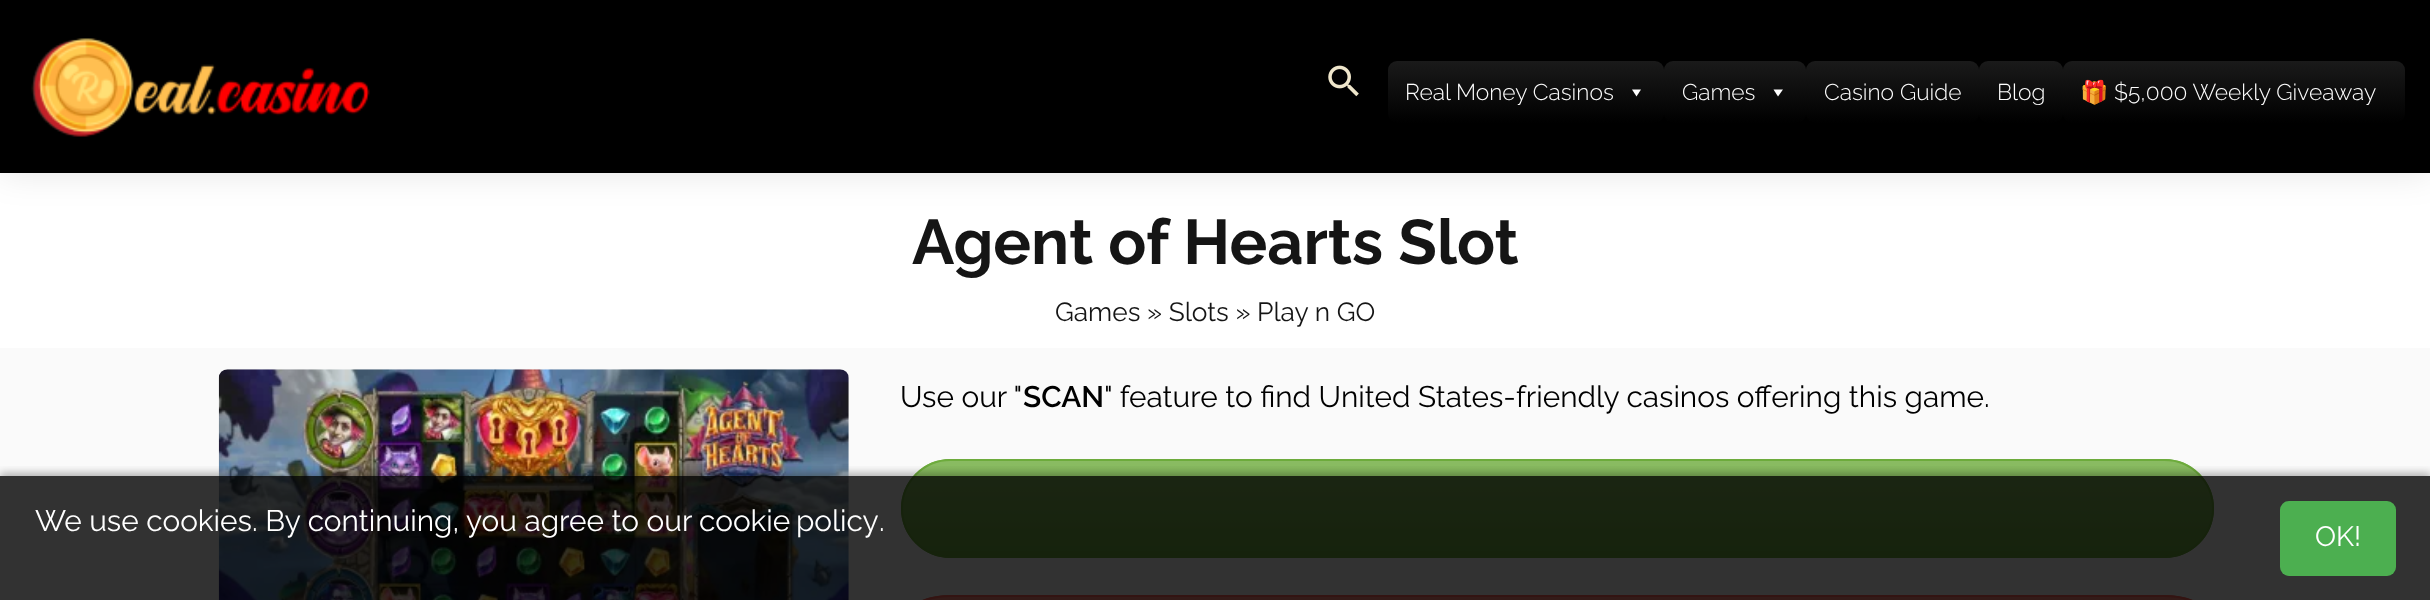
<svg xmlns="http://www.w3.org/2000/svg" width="2430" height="600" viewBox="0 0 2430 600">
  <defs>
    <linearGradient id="g1" gradientUnits="userSpaceOnUse" x1="1526" y1="61" x2="1526" y2="123"><stop offset="0" stop-color="rgb(26,26,26)"/><stop offset="1" stop-color="rgb(0,0,0)"/></linearGradient>
    <linearGradient id="g2" gradientUnits="userSpaceOnUse" x1="1735" y1="61" x2="1735" y2="123"><stop offset="0" stop-color="rgb(26,26,26)"/><stop offset="1" stop-color="rgb(0,0,0)"/></linearGradient>
    <linearGradient id="g3" gradientUnits="userSpaceOnUse" x1="1893" y1="61" x2="1893" y2="123"><stop offset="0" stop-color="rgb(26,26,26)"/><stop offset="1" stop-color="rgb(0,0,0)"/></linearGradient>
    <linearGradient id="g4" gradientUnits="userSpaceOnUse" x1="2021" y1="61" x2="2021" y2="123"><stop offset="0" stop-color="rgb(26,26,26)"/><stop offset="1" stop-color="rgb(0,0,0)"/></linearGradient>
    <linearGradient id="g5" gradientUnits="userSpaceOnUse" x1="2234" y1="61" x2="2234" y2="123"><stop offset="0" stop-color="rgb(26,26,26)"/><stop offset="1" stop-color="rgb(0,0,0)"/></linearGradient>
    <clipPath id="clip1"><rect x="901" y="459" width="1313" height="99" rx="49.5"/></clipPath>
    <linearGradient id="g6" gradientUnits="userSpaceOnUse" x1="1558" y1="460" x2="1558" y2="557"><stop offset="0" stop-color="rgb(255,255,255)" stop-opacity="0.2"/><stop offset="1" stop-color="rgb(255,255,255)" stop-opacity="0.01"/></linearGradient>
    <clipPath id="clip2"><rect x="901" y="595" width="1313" height="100" rx="50"/></clipPath>
    <linearGradient id="g7" gradientUnits="userSpaceOnUse" x1="1558" y1="597" x2="1558" y2="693"><stop offset="0" stop-color="rgb(255,255,255)" stop-opacity="0.2"/><stop offset="1" stop-color="rgb(255,255,255)" stop-opacity="0.01"/></linearGradient>
    <clipPath id="clip3"><rect x="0" y="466" width="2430" height="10"/></clipPath>
  </defs>
  <rect width="100%" height="100%" fill="rgb(255,255,255)"/>
  <rect x="0" y="0" width="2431" height="173" fill="rgba(0,0,0,0.1)" filter="blur(17.5px)"/>
  <rect x="0" y="0" width="2430" height="173" fill="rgb(0,0,0)"/>
  <image x="31" y="38" width="339" height="99" href="pic1.png"/>
  <image x="1328" y="65" width="31" height="32" href="pic2.png"/>
  <rect x="1388" y="61" width="276" height="62" rx="9" fill="url(#g1)"/>
  <text x="1405" y="100" font-family="Raleway" font-size="22.75" font-weight="300" fill="rgb(255,255,255)">Real Money Casinos</text>
  <path d="M1641 89.5L1636.5 96.5L1632 89.5Z" fill="rgb(255,255,255)"/>
  <rect x="1664" y="61" width="142" height="62" rx="9" fill="url(#g2)"/>
  <text x="1682" y="100" font-family="Raleway" font-size="22.75" font-weight="300" fill="rgb(255,255,255)">Games</text>
  <path d="M1783 89.5L1778 96.5L1773.5 89.5Z" fill="rgb(255,255,255)"/>
  <rect x="1806" y="61" width="173" height="62" rx="9" fill="url(#g3)"/>
  <text x="1824" y="100" font-family="Raleway" font-size="22.75" font-weight="300" fill="rgb(255,255,255)">Casino Guide</text>
  <rect x="1979" y="61" width="84" height="62" rx="9" fill="url(#g4)"/>
  <text x="1997" y="100" font-family="Raleway" font-size="22.75" font-weight="300" fill="rgb(255,255,255)">Blog</text>
  <rect x="2063" y="61" width="342" height="62" rx="9" fill="url(#g5)"/>
  <text x="2080" y="100" font-family="Noto Color Emoji" font-size="22.75" fill="rgb(255,255,255)">🎁</text>
  <text x="2114" y="100" font-family="Raleway" font-size="22.75" font-weight="300" fill="rgb(255,255,255)">$5,000 Weekly Giveaway</text>
  <text x="912" y="264" font-family="Raleway" font-size="63" font-weight="bold" fill="rgb(21,21,21)">Agent of Hearts Slot</text>
  <text x="1055" y="321" font-family="Raleway" font-size="26.25" font-weight="100" fill="rgb(21,21,21)">Games » Slots » Play n GO</text>
  <rect x="0" y="348" width="2430" height="252" fill="rgb(250,250,250)"/>
  <image x="218" y="369" width="631" height="231" href="pic3.png"/>
  <text x="900" y="407" font-family="Raleway" font-size="29.75" font-weight="100" fill="rgb(0,0,0)">Use our "</text>
  <text x="1023" y="407" font-family="Raleway" font-size="29.75" font-weight="600" fill="rgb(0,0,0)">SCAN</text>
  <text x="1104" y="407" font-family="Raleway" font-size="29.75" font-weight="100" fill="rgb(0,0,0)">" feature to find United States-friendly casinos offering this game.</text>
  <rect x="901" y="459" width="1313" height="99" rx="49.5" fill="rgb(109,171,60)"/>
  <g clip-path="url(#clip1)">
    <rect x="901" y="460" width="1313" height="91" fill="url(#g6)"/>
  </g>
  <rect x="902" y="460" width="1311" height="97" rx="48.5" fill="none" stroke="rgb(109,171,60)" stroke-width="2"/>
  <rect x="901" y="595" width="1313" height="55" rx="50" fill="rgb(255,103,91)"/>
  <g clip-path="url(#clip2)">
    <rect x="929" y="597" width="1257" height="3" fill="url(#g7)"/>
  </g>
  <rect x="902" y="596" width="1311" height="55" rx="49" fill="none" stroke="rgb(255,103,91)" stroke-width="2"/>
  <g clip-path="url(#clip3)">
    <rect x="0" y="473" width="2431" height="124" fill="rgba(0,0,0,0.3)" filter="blur(4.5px)"/>
  </g>
  <rect x="0" y="476" width="2430" height="124" fill="rgba(0,0,0,0.8)"/>
  <g font-family="Raleway" font-size="29.75" font-weight="100" fill="rgb(255,255,255)">
    <text x="35" y="531">We use cookies. By continuing, you agree to our</text>
    <text x="699" y="531" word-spacing="-2">cookie policy</text>
    <text x="879" y="531">.</text>
  </g>
  <rect x="2280" y="501" width="116" height="75" rx="9" fill="rgb(76,175,80)"/>
  <text x="2315" y="546" font-family="Raleway" font-size="28" font-weight="100" fill="rgb(255,255,255)">OK!</text>
</svg>
